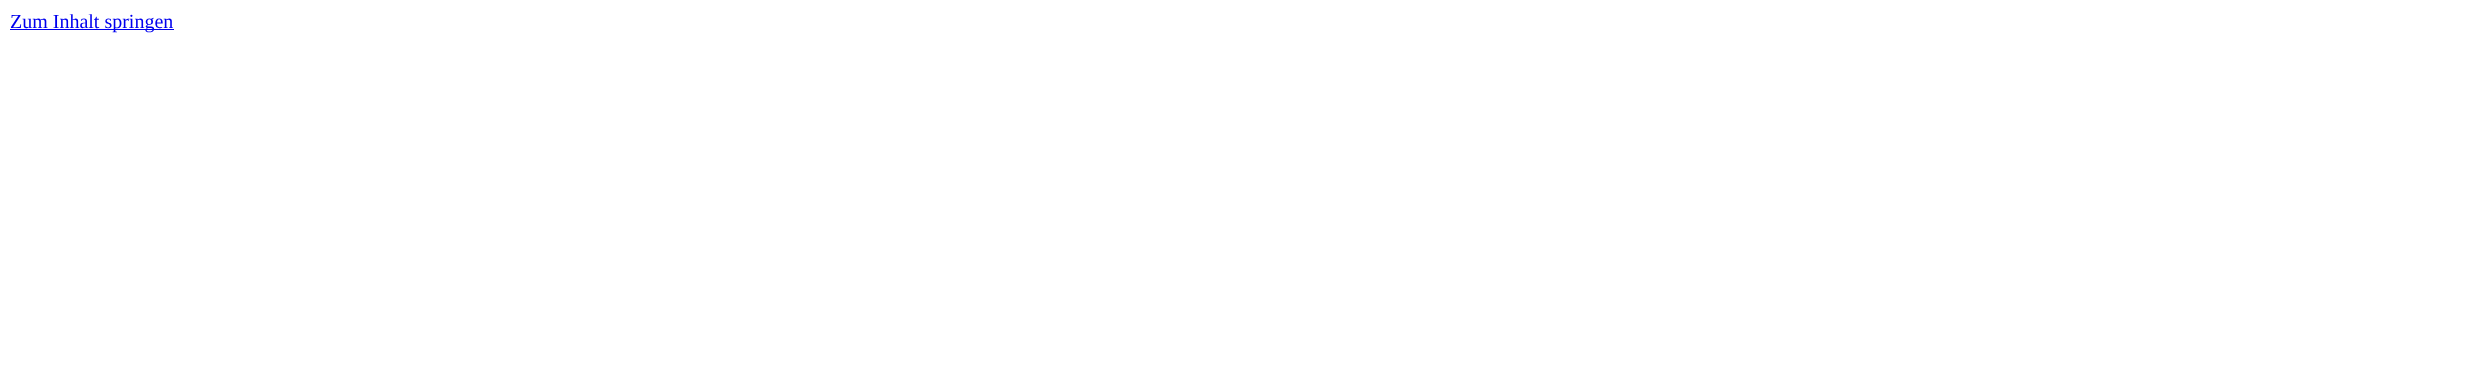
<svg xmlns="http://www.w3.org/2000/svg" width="2483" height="365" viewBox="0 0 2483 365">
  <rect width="100%" height="100%" fill="rgb(255,255,255)"/>
  <rect x="10" y="29" width="164" height="1" fill="rgb(0,0,238)"/>
  <text x="10" y="28" font-family="Liberation Serif" font-size="20" fill="rgb(0,0,238)">Zum Inhalt springen</text>
</svg>
